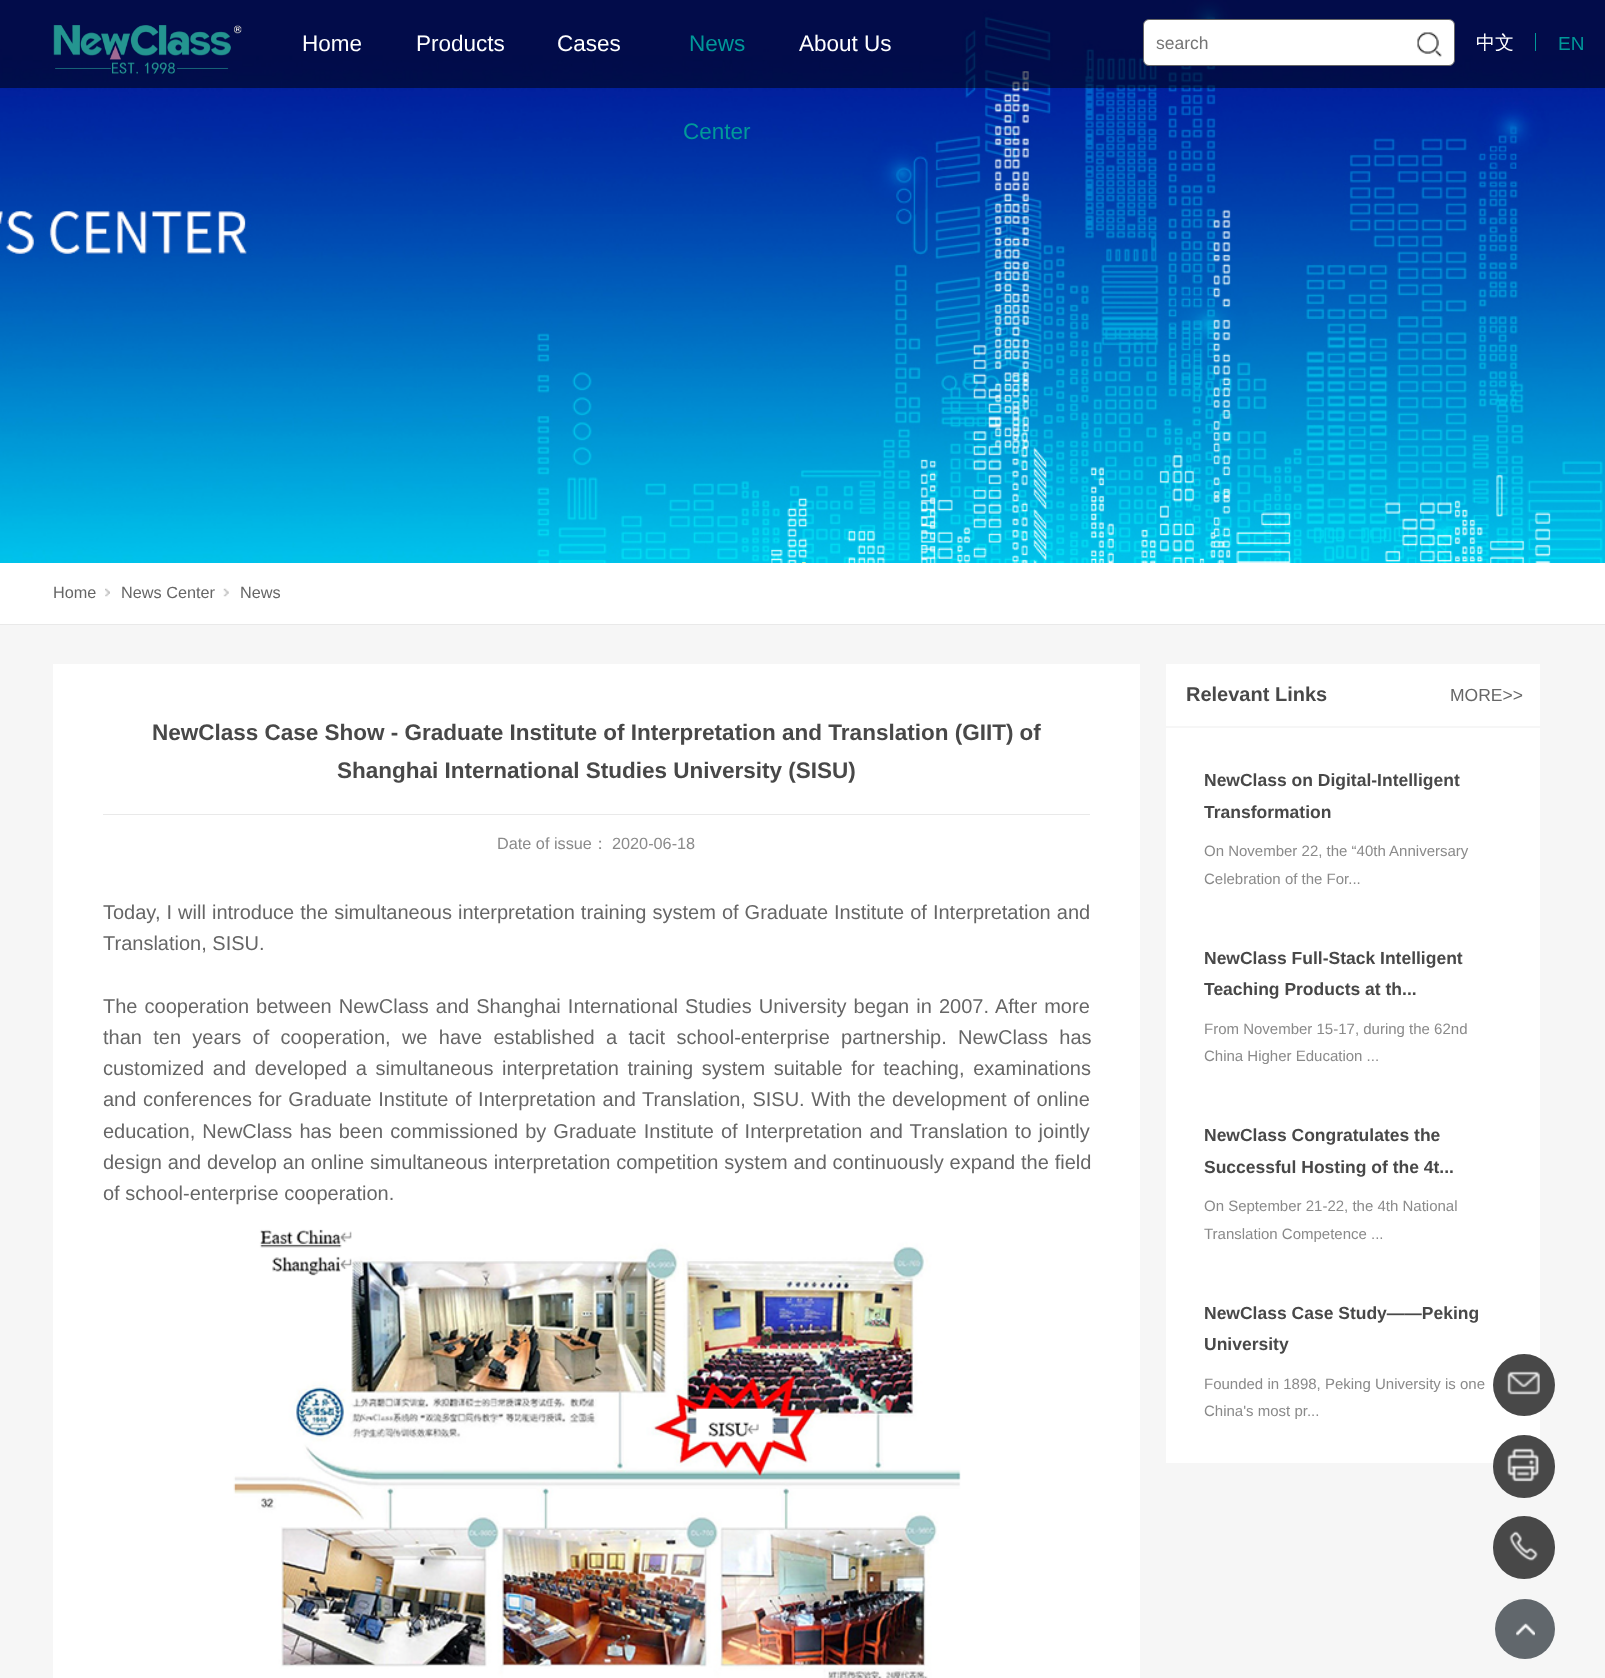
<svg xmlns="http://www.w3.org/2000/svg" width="1605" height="1678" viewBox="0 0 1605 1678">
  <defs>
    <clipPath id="clip1"><rect x="0" y="0" width="1605" height="563"/></clipPath>
    <clipPath id="clip2"><rect x="1471" y="33" width="64" height="18"/></clipPath>
  </defs>
  <rect width="100%" height="100%" fill="rgb(255,255,255)"/>
  <image x="0" y="0" width="1605" height="563" href="pic1.png"/>
  <g clip-path="url(#clip1)">
    <path d="M802.5 562.5H805.5L806 564.5H803Z" fill="rgb(247,247,182)"/>
    <path d="M802.5 562.5H805.5V565H802.5Z" fill="rgb(247,247,182)"/>
    <path d="M802.5 562.5H805.5V565.5H802.5Z" fill="rgb(247,247,182)"/>
  </g>
  <path d="M802.5 562.5H803.5L802 563.5H801Z" fill="rgb(247,247,182)"/>
  <rect x="0" y="0" width="1605" height="88" fill="rgba(0,0,0,0.52)"/>
  <image x="53" y="25" width="189" height="49" href="pic2.png"/>
  <g font-family="Liberation Sans" font-size="22.5" fill="rgb(255,255,255)">
    <text x="302" y="51">Home</text>
    <text x="416" y="51">Products</text>
    <text x="557" y="51">Cases</text>
  </g>
  <g font-family="Liberation Sans" font-size="22.5" fill="rgb(0,153,153)">
    <text x="689" y="51">News</text>
    <text x="683" y="139">Center</text>
  </g>
  <text x="799" y="51" font-family="Liberation Sans" font-size="22.5" fill="rgb(255,255,255)">About Us</text>
  <rect x="1143.5" y="19.5" width="311" height="46" rx="5.5" fill="rgb(255,255,255)" stroke="rgb(102,102,102)"/>
  <text x="1156" y="49" font-family="Liberation Sans" font-size="17.5" fill="rgb(117,117,117)">search</text>
  <image x="1417" y="32" width="25" height="25" href="pic3.png"/>
  <rect x="1535" y="33" width="1" height="18" fill="rgb(0,153,153)"/>
  <g clip-path="url(#clip2)">
    <text x="1476" y="49" font-family="WenQuanYi Zen Hei" font-size="19" font-weight="500" fill="rgb(255,255,255)">中文</text>
  </g>
  <text x="1558" y="50" font-family="Liberation Sans" font-size="19" fill="rgb(0,153,153)">EN</text>
  <rect x="0" y="624" width="1605" height="1" fill="rgb(233,233,233)"/>
  <text x="53" y="598" font-family="Liberation Sans" font-size="16.25" fill="rgb(102,102,102)">Home</text>
  <image x="105" y="588" width="5" height="9" href="pic4.png"/>
  <text x="121" y="598" font-family="Liberation Sans" font-size="16.25" fill="rgb(102,102,102)">News Center</text>
  <image x="223" y="588" width="6" height="9" href="pic5.png"/>
  <text x="240" y="598" font-family="Liberation Sans" font-size="16.25" fill="rgb(102,102,102)">News</text>
  <rect x="0" y="625" width="1605" height="1053" fill="rgb(246,246,246)"/>
  <rect x="53" y="664" width="1087" height="1014" fill="rgb(255,255,255)"/>
  <rect x="103" y="814" width="987" height="1" fill="rgb(233,233,233)"/>
  <g font-family="Liberation Sans" font-size="22.5" font-weight="bold" fill="rgb(72,72,72)">
    <text x="152" y="740">NewClass Case Show - Graduate Institute of Interpretation and Translation (GIIT) of</text>
    <text x="337" y="778">Shanghai International Studies University (SISU)</text>
  </g>
  <text x="497" y="849" font-family="Liberation Sans" font-size="16.25" fill="rgb(138,138,138)">Date of issue</text>
  <text x="592" y="849" font-family="WenQuanYi Zen Hei" font-size="16.25" font-weight="500" fill="rgb(138,138,138)">：</text>
  <text x="612" y="849" font-family="Liberation Sans" font-size="16.25" fill="rgb(138,138,138)">2020-06-18</text>
  <g font-family="Liberation Sans" font-size="20" fill="rgb(102,102,102)">
    <text>
      <tspan x="103" y="919" word-spacing="0.5">Today, I will introduce the simultaneous interpretation training system of Graduate Institute of Interpretation and</tspan>
      <tspan x="103" y="950">Translation, SISU.</tspan>
    </text>
    <text>
      <tspan x="103" y="1013" word-spacing="1.5">The cooperation between NewClass and Shanghai International Studies University began in 2007. After more</tspan>
      <tspan x="103" y="1044" word-spacing="5.75">than ten years of cooperation, we have established a tacit school-enterprise partnership. NewClass has</tspan>
      <tspan x="103" y="1075" word-spacing="3.1">customized and developed a simultaneous interpretation training system suitable for teaching, examinations</tspan>
      <tspan x="103" y="1106" word-spacing="1">and conferences for Graduate Institute of Interpretation and Translation, SISU. With the development of online</tspan>
      <tspan x="103" y="1138" word-spacing="1.5">education, NewClass has been commissioned by Graduate Institute of Interpretation and Translation to jointly</tspan>
      <tspan x="103" y="1169" word-spacing="0.25">design and develop an online simultaneous interpretation competition system and continuously expand the field</tspan>
      <tspan x="103" y="1200">of school-enterprise cooperation.</tspan>
    </text>
  </g>
  <image x="233" y="1229" width="728" height="449" href="pic6.png"/>
  <rect x="1166" y="664" width="374" height="62" fill="rgb(255,255,255)"/>
  <text x="1186" y="701" font-family="Liberation Sans" font-size="20" font-weight="bold" fill="rgb(72,72,72)">Relevant Links</text>
  <text x="1450" y="701" font-family="Liberation Sans" font-size="17.5" fill="rgb(102,102,102)">MORE&gt;&gt;</text>
  <rect x="1166" y="728" width="374" height="735" fill="rgb(255,255,255)"/>
  <g font-family="Liberation Sans" font-size="17.5" font-weight="bold" fill="rgb(72,72,72)">
    <text>
      <tspan x="1204" y="786">NewClass on Digital-Intelligent</tspan>
      <tspan x="1204" y="818">Transformation</tspan>
    </text>
  </g>
  <g font-family="Liberation Sans" font-size="15" fill="rgb(138,138,138)">
    <text>
      <tspan x="1204" y="856">On November 22, the “40th Anniversary</tspan>
      <tspan x="1204" y="884">Celebration of the For...</tspan>
    </text>
  </g>
  <g font-family="Liberation Sans" font-size="17.5" font-weight="bold" fill="rgb(72,72,72)">
    <text>
      <tspan x="1204" y="964">NewClass Full-Stack Intelligent</tspan>
      <tspan x="1204" y="995">Teaching Products at th...</tspan>
    </text>
  </g>
  <g font-family="Liberation Sans" font-size="15" fill="rgb(138,138,138)">
    <text>
      <tspan x="1204" y="1034">From November 15-17, during the 62nd</tspan>
      <tspan x="1204" y="1061">China Higher Education ...</tspan>
    </text>
  </g>
  <g font-family="Liberation Sans" font-size="17.5" font-weight="bold" fill="rgb(72,72,72)">
    <text>
      <tspan x="1204" y="1141">NewClass Congratulates the</tspan>
      <tspan x="1204" y="1173">Successful Hosting of the 4t...</tspan>
    </text>
  </g>
  <g font-family="Liberation Sans" font-size="15" fill="rgb(138,138,138)">
    <text>
      <tspan x="1204" y="1211">On September 21-22, the 4th National</tspan>
      <tspan x="1204" y="1239">Translation Competence ...</tspan>
    </text>
  </g>
  <g font-family="Liberation Sans" font-size="17.5" font-weight="bold" fill="rgb(72,72,72)">
    <text>
      <tspan x="1204" y="1319">NewClass Case Study——Peking</tspan>
      <tspan x="1204" y="1350">University</tspan>
    </text>
  </g>
  <g font-family="Liberation Sans" font-size="15" fill="rgb(138,138,138)">
    <text>
      <tspan x="1204" y="1389">Founded in 1898, Peking University is one</tspan>
      <tspan x="1204" y="1416">China's most pr...</tspan>
    </text>
  </g>
  <circle cx="1524" cy="1385" r="31" fill="rgb(72,72,72)"/>
  <image x="1507" y="1371" width="33" height="24" href="pic7.png"/>
  <rect x="1493" y="1435" width="62" height="63" rx="31" fill="rgb(72,72,72)"/>
  <image x="1507" y="1448" width="33" height="34" href="pic8.png"/>
  <rect x="1493" y="1516" width="62" height="63" rx="31" fill="rgb(72,72,72)"/>
  <image x="1509" y="1531" width="29" height="30" href="pic9.png"/>
  <circle cx="1525" cy="1629" r="30" fill="rgb(97,103,108)"/>
  <image x="1516" y="1623" width="19" height="13" href="pic10.png"/>
</svg>
